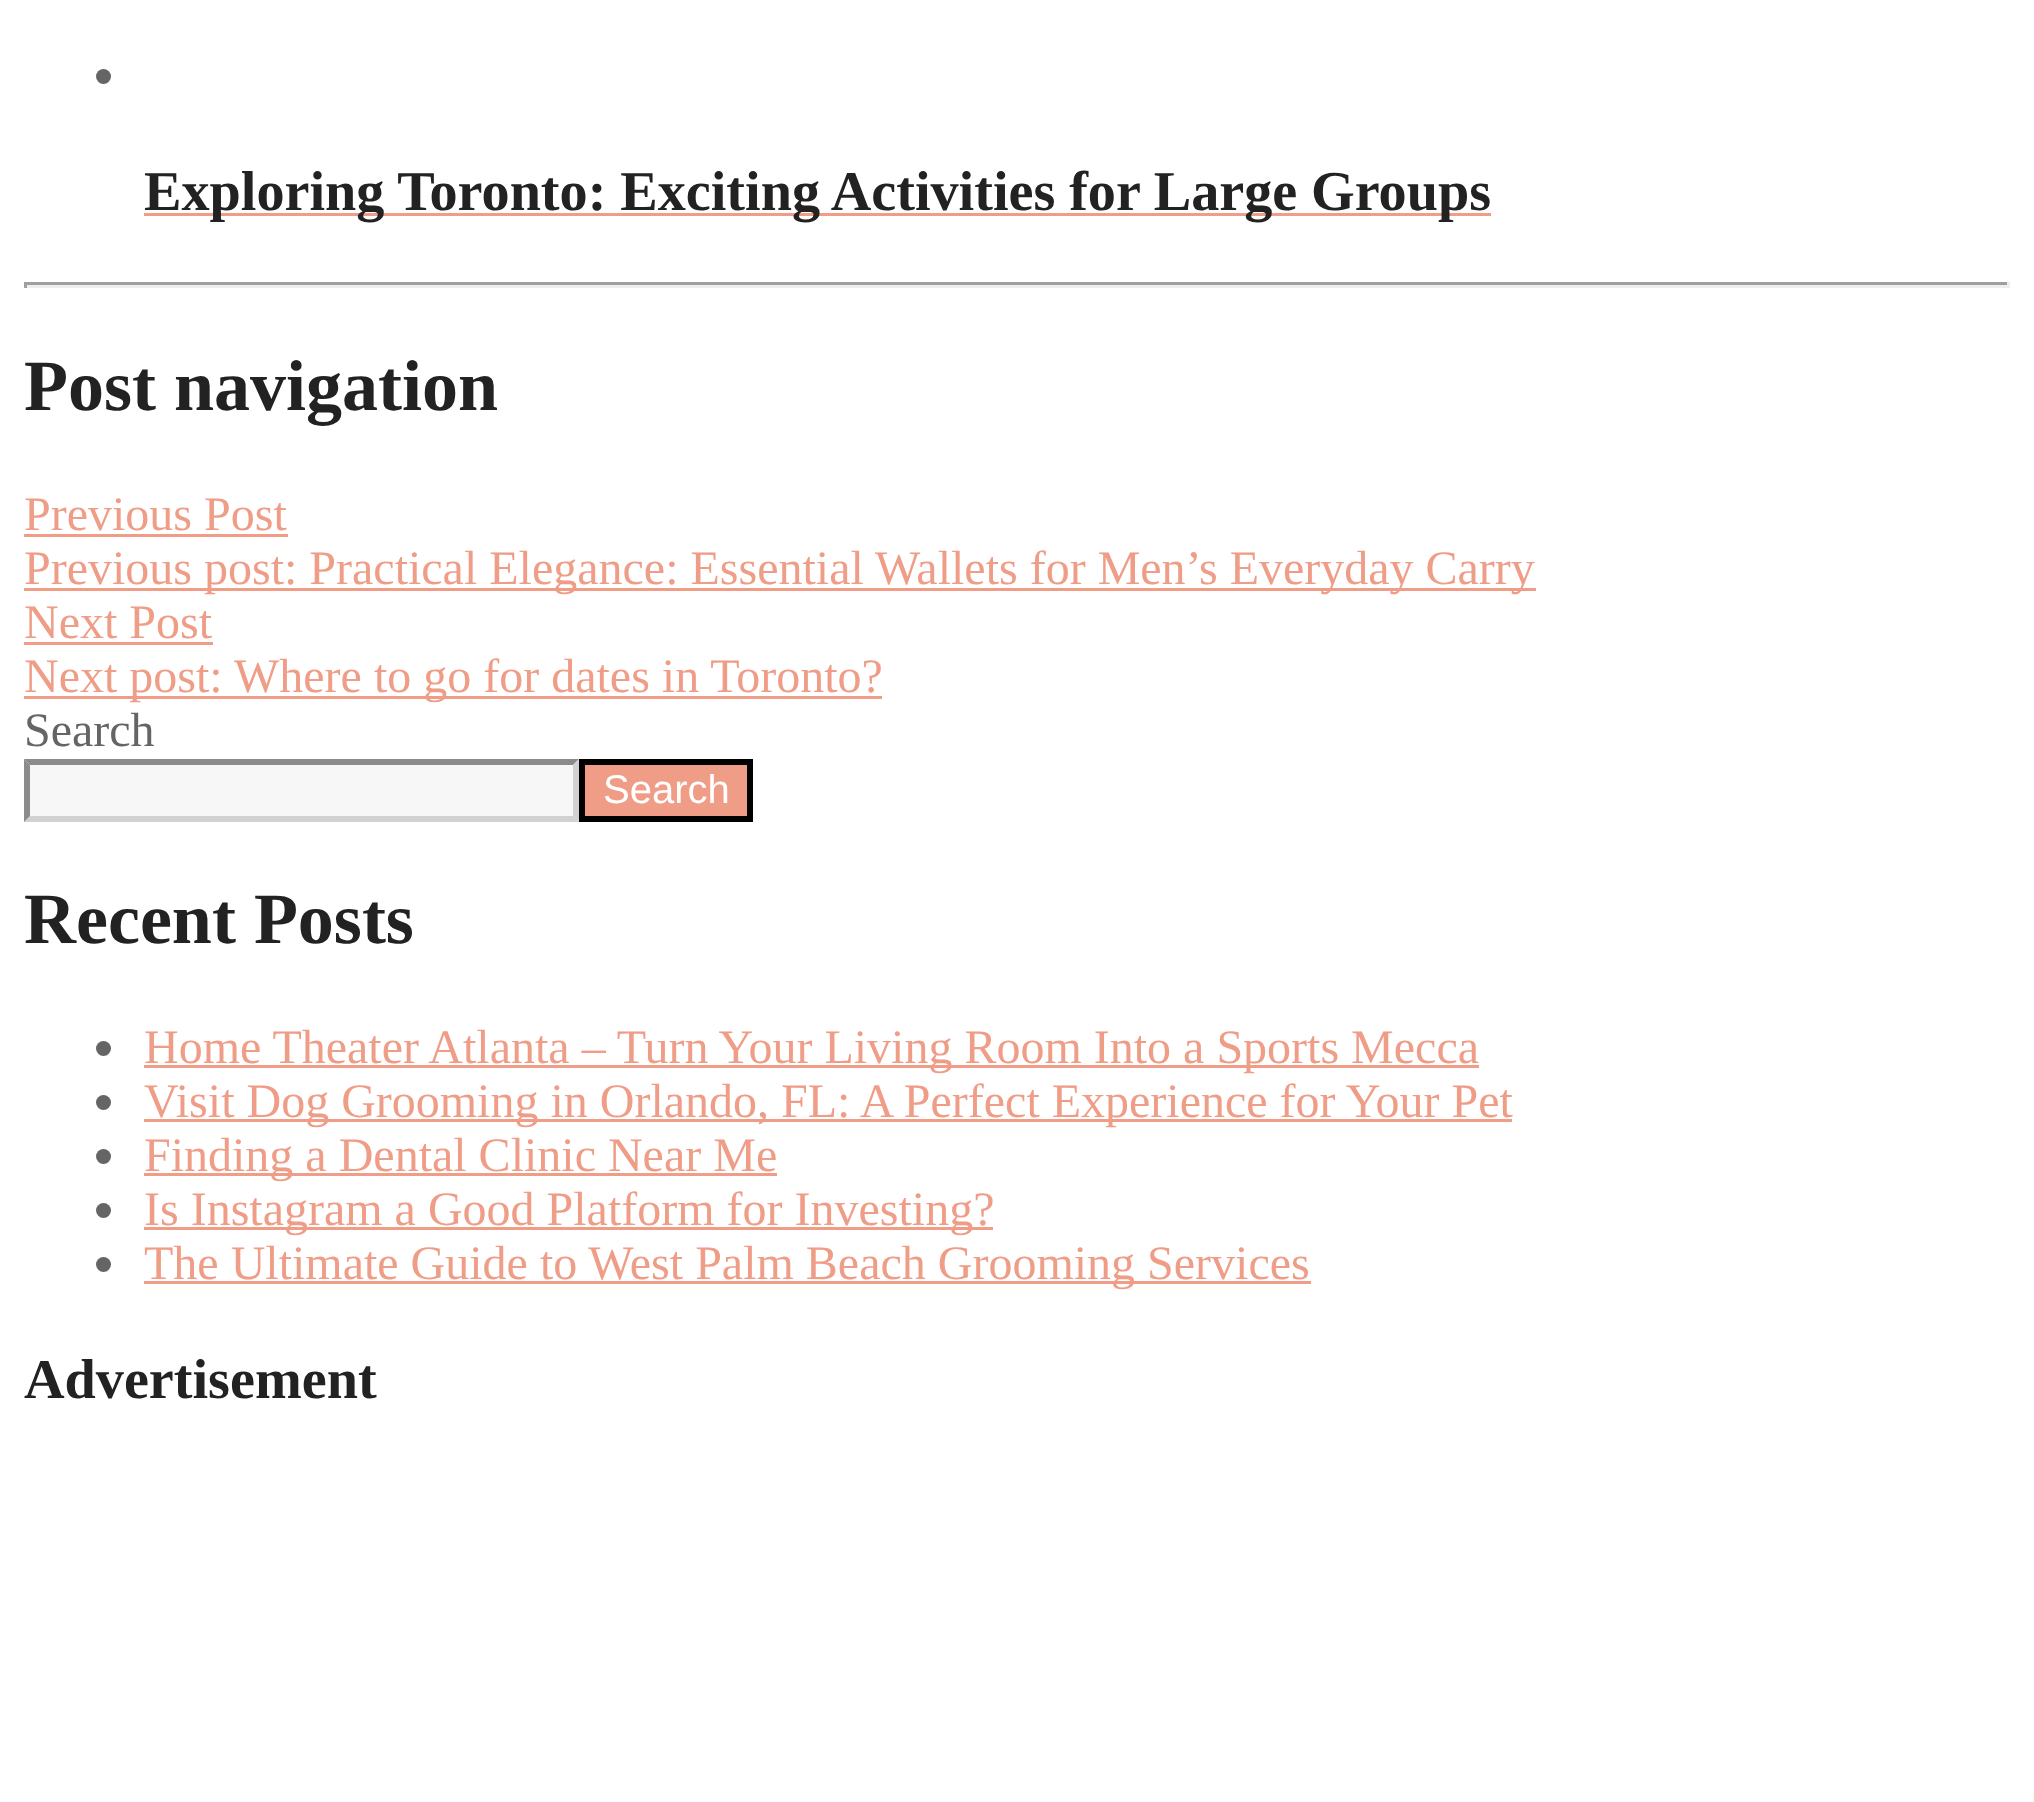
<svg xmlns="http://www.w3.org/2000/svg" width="2034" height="1802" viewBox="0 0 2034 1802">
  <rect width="100%" height="100%" fill="rgb(255,255,255)"/>
  <circle cx="103.5" cy="76.5" r="7.5" fill="rgb(101,101,101)"/>
  <rect x="144" y="213" width="1347" height="3" fill="rgb(239,157,135)"/>
  <text x="144" y="210" word-spacing="-0.25" font-family="Liberation Serif" font-size="56.2" font-weight="bold" fill="rgb(34,34,34)">Exploring Toronto: Exciting Activities for Large Groups</text>
  <rect x="24" y="282" width="1986" height="3" fill="rgb(159,159,159)"/>
  <rect x="2007" y="282" width="3" height="6" fill="rgb(238,238,238)"/>
  <rect x="24" y="285" width="1986" height="3" fill="rgb(238,238,238)"/>
  <rect x="24" y="282" width="3" height="6" fill="rgb(159,159,159)"/>
  <text x="24" y="410" font-family="Liberation Serif" font-size="72" font-weight="bold" fill="rgb(34,34,34)">Post navigation</text>
  <text x="24" y="530" font-family="Liberation Serif" font-size="48" fill="rgb(239,157,135)">Previous Post</text>
  <rect x="24" y="534" width="264" height="3" fill="rgb(239,157,135)"/>
  <rect x="24" y="588" width="1512" height="3" fill="rgb(239,157,135)"/>
  <g font-family="Liberation Serif" font-size="48" fill="rgb(239,157,135)">
    <text>
      <tspan x="24" y="584">Previous post: Practical Elegance: Essential Wallets for Men’s Everyday Carry</tspan>
      <tspan x="24" y="638">Next Post</tspan>
    </text>
  </g>
  <rect x="24" y="642" width="189" height="3" fill="rgb(239,157,135)"/>
  <rect x="24" y="696" width="858" height="3" fill="rgb(239,157,135)"/>
  <g font-family="Liberation Serif" font-size="48" fill="rgb(239,157,135)">
    <text x="24" y="692">Next post:</text>
    <text x="234" y="692">Where to go for dates in Toronto?</text>
  </g>
  <text x="24" y="746" font-family="Liberation Serif" font-size="48" fill="rgb(101,101,101)">Search</text>
  <rect x="24" y="759" width="555" height="63" fill="rgb(247,247,247)"/>
  <path d="M24 759H579L573 765H30Z" fill="rgb(139,139,139)"/>
  <path d="M579 759V822L573 816V765Z" fill="rgb(209,209,209)"/>
  <path d="M579 822H24L30 816H573Z" fill="rgb(209,209,209)"/>
  <path d="M24 822V759L30 765V816Z" fill="rgb(139,139,139)"/>
  <rect x="582" y="762" width="168" height="57" fill="rgb(239,157,135)" stroke="rgb(0,0,0)" stroke-width="6"/>
  <text x="603" y="803" font-family="Liberation Sans" font-size="40" fill="rgb(255,255,255)">Search</text>
  <text x="24" y="943" font-family="Liberation Serif" font-size="72" font-weight="bold" fill="rgb(34,34,34)">Recent Posts</text>
  <circle cx="103.5" cy="1048.5" r="7.5" fill="rgb(101,101,101)"/>
  <rect x="144" y="1065" width="1335" height="3" fill="rgb(239,157,135)"/>
  <text x="144" y="1063" font-family="Liberation Serif" font-size="48" fill="rgb(239,157,135)">Home Theater Atlanta – Turn Your Living Room Into a Sports Mecca</text>
  <circle cx="103.5" cy="1102.5" r="7.5" fill="rgb(101,101,101)"/>
  <rect x="144" y="1119" width="1368" height="3" fill="rgb(239,157,135)"/>
  <text x="144" y="1117" font-family="Liberation Serif" font-size="48" fill="rgb(239,157,135)">Visit Dog Grooming in Orlando, FL: A Perfect Experience for Your Pet</text>
  <circle cx="103.5" cy="1156.5" r="7.5" fill="rgb(101,101,101)"/>
  <rect x="144" y="1173" width="633" height="3" fill="rgb(239,157,135)"/>
  <text x="144" y="1171" font-family="Liberation Serif" font-size="48" fill="rgb(239,157,135)">Finding a Dental Clinic Near Me</text>
  <circle cx="103.5" cy="1210.5" r="7.5" fill="rgb(101,101,101)"/>
  <rect x="144" y="1227" width="849" height="3" fill="rgb(239,157,135)"/>
  <text x="144" y="1225" font-family="Liberation Serif" font-size="48" fill="rgb(239,157,135)">Is Instagram a Good Platform for Investing?</text>
  <circle cx="103.5" cy="1264.5" r="7.5" fill="rgb(101,101,101)"/>
  <rect x="144" y="1281" width="1167" height="3" fill="rgb(239,157,135)"/>
  <text x="144" y="1279" font-family="Liberation Serif" font-size="48" fill="rgb(239,157,135)">The Ultimate Guide to West Palm Beach Grooming Services</text>
  <text x="24" y="1398" font-family="Liberation Serif" font-size="56.2" font-weight="bold" fill="rgb(34,34,34)">Advertisement</text>
</svg>
